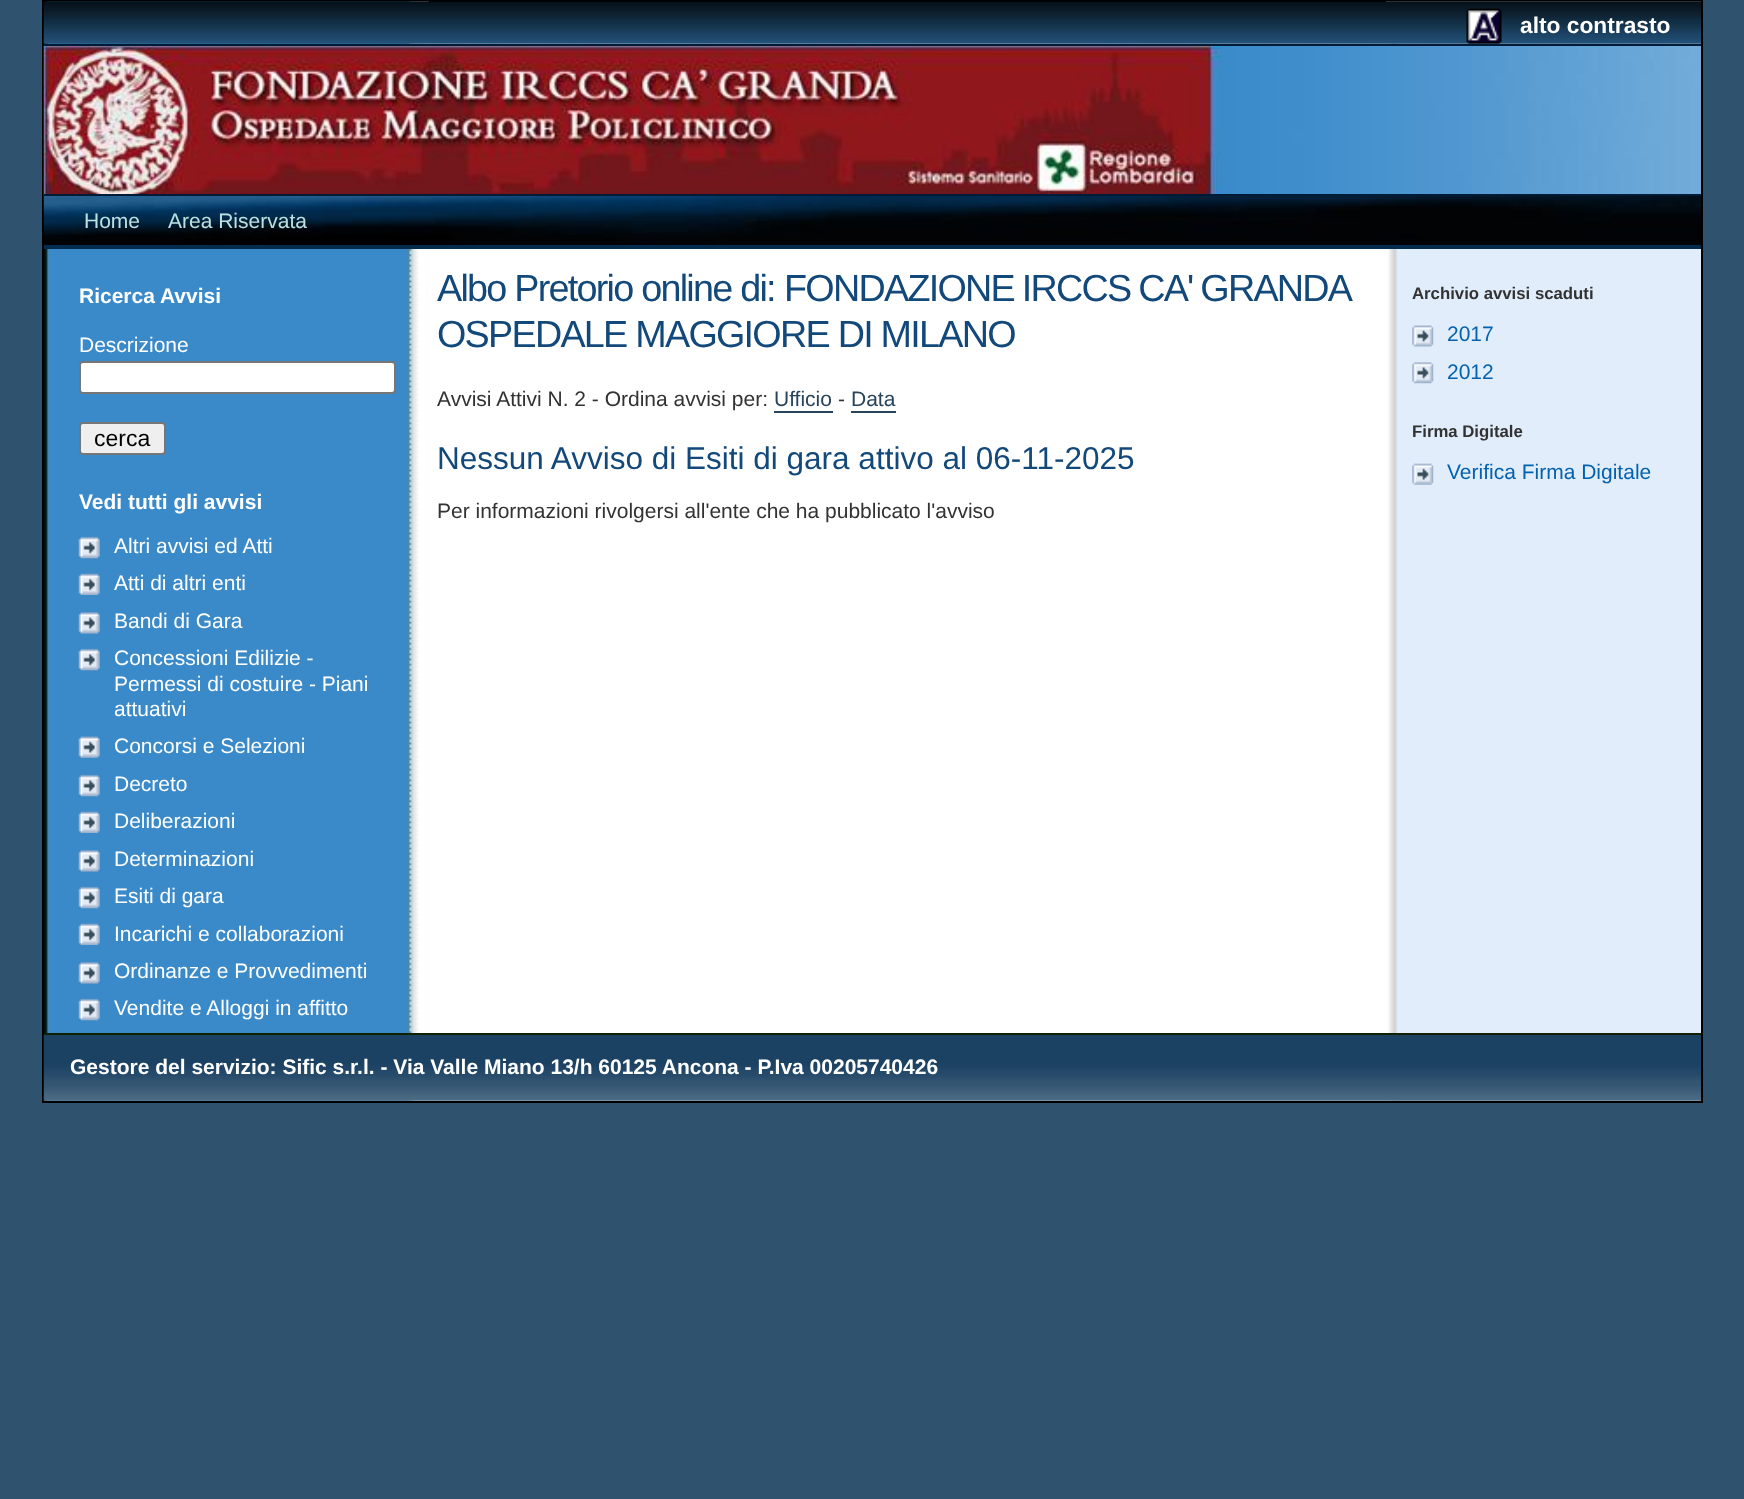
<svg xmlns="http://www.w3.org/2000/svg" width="1744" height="1499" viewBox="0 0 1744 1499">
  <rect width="100%" height="100%" fill="rgb(47,82,110)"/>
  <rect x="44" y="43" width="1657" height="1058" fill="rgb(255,255,255)"/>
  <rect x="43" y="1" width="1659" height="1101" fill="none" stroke="rgb(0,0,0)" stroke-width="2"/>
  <image x="43" y="1" width="386" height="1100" href="pic1.png"/>
  <image x="1386" y="1" width="315" height="1100" href="pic2.png"/>
  <image x="43" y="1" width="1658" height="43" href="pic3.png"/>
  <image x="1466" y="8" width="36" height="36" href="pic4.png"/>
  <text x="1520" y="33" font-family="Liberation Sans" font-size="22.75" font-weight="bold" fill="rgb(255,255,255)">alto contrasto</text>
  <image x="43" y="45" width="1658" height="151" href="pic5.png"/>
  <rect x="44" y="44" width="1657" height="2" fill="rgb(0,27,53)"/>
  <rect x="44" y="194" width="1657" height="2" fill="rgb(0,27,53)"/>
  <image x="43" y="196" width="1658" height="53" href="pic6.png"/>
  <rect x="44" y="245" width="1657" height="4" fill="rgb(1,44,78)"/>
  <g font-family="Liberation Sans" font-size="21" fill="rgb(187,225,225)">
    <text x="84" y="228">Home</text>
    <text x="168" y="228">Area Riservata</text>
  </g>
  <rect x="53" y="249" width="15" height="784" fill="rgb(58,137,201)"/>
  <text x="79" y="303" font-family="Liberation Sans" font-size="21" font-weight="bold" fill="rgb(255,255,255)">Ricerca Avvisi</text>
  <text x="79" y="352" font-family="Liberation Sans" font-size="21" fill="rgb(255,255,255)">Descrizione</text>
  <rect x="80" y="362" width="315" height="31" rx="3" fill="rgb(255,255,255)" stroke="rgb(118,118,118)" stroke-width="2"/>
  <rect x="80" y="423" width="85" height="31" rx="3" fill="rgb(239,239,239)" stroke="rgb(118,118,118)" stroke-width="2"/>
  <text x="94" y="446" font-family="Liberation Sans" font-size="23" fill="rgb(0,0,0)">cerca</text>
  <text x="79" y="509" font-family="Liberation Sans" font-size="21" font-weight="bold" fill="rgb(255,255,255)">Vedi tutti gli avvisi</text>
  <image x="78" y="536" width="22" height="23" href="pic7.png"/>
  <text x="114" y="553" font-family="Liberation Sans" font-size="21" fill="rgb(255,255,255)">Altri avvisi ed Atti</text>
  <image x="78" y="573" width="22" height="22" href="pic8.png"/>
  <text x="114" y="590" font-family="Liberation Sans" font-size="21" fill="rgb(255,255,255)">Atti di altri enti</text>
  <image x="78" y="612" width="22" height="22" href="pic9.png"/>
  <text x="114" y="628" font-family="Liberation Sans" font-size="21" fill="rgb(255,255,255)">Bandi di Gara</text>
  <image x="78" y="648" width="22" height="23" href="pic7.png"/>
  <g font-family="Liberation Sans" font-size="21" fill="rgb(255,255,255)">
    <text>
      <tspan x="114" y="665">Concessioni Edilizie -</tspan>
      <tspan x="114" y="691">Permessi di costuire - Piani</tspan>
      <tspan x="114" y="716">attuativi</tspan>
    </text>
  </g>
  <image x="78" y="736" width="22" height="22" href="pic10.png"/>
  <text x="114" y="753" font-family="Liberation Sans" font-size="21" fill="rgb(255,255,255)">Concorsi e Selezioni</text>
  <image x="78" y="774" width="22" height="23" href="pic7.png"/>
  <text x="114" y="791" font-family="Liberation Sans" font-size="21" fill="rgb(255,255,255)">Decreto</text>
  <image x="78" y="811" width="22" height="22" href="pic8.png"/>
  <text x="114" y="828" font-family="Liberation Sans" font-size="21" fill="rgb(255,255,255)">Deliberazioni</text>
  <image x="78" y="850" width="22" height="22" href="pic9.png"/>
  <text x="114" y="866" font-family="Liberation Sans" font-size="21" fill="rgb(255,255,255)">Determinazioni</text>
  <image x="78" y="886" width="22" height="23" href="pic7.png"/>
  <text x="114" y="903" font-family="Liberation Sans" font-size="21" fill="rgb(255,255,255)">Esiti di gara</text>
  <image x="78" y="923" width="22" height="22" href="pic8.png"/>
  <text x="114" y="941" font-family="Liberation Sans" font-size="21" fill="rgb(255,255,255)">Incarichi e collaborazioni</text>
  <image x="78" y="962" width="22" height="22" href="pic9.png"/>
  <text x="114" y="978" font-family="Liberation Sans" font-size="21" fill="rgb(255,255,255)">Ordinanze e Provvedimenti</text>
  <image x="78" y="998" width="22" height="23" href="pic7.png"/>
  <text x="114" y="1015" font-family="Liberation Sans" font-size="21" fill="rgb(255,255,255)">Vendite e Alloggi in affitto</text>
  <g font-family="Liberation Sans" font-size="37.75" letter-spacing="-1.75" fill="rgb(19,72,122)">
    <text x="437" y="301">Albo Pretorio online di:</text>
    <text x="784" y="301" word-spacing="-1">FONDAZIONE IRCCS CA' GRANDA</text>
    <text x="437" y="347">OSPEDALE MAGGIORE DI MILANO</text>
  </g>
  <text x="437" y="406" font-family="Liberation Sans" font-size="21" fill="rgb(50,50,50)">Avvisi Attivi N. 2 - Ordina avvisi per:</text>
  <text x="774" y="406" font-family="Liberation Sans" font-size="21" fill="rgb(40,68,91)">Ufficio</text>
  <rect x="774" y="411" width="59" height="2" fill="rgb(40,68,91)"/>
  <text x="838" y="406" font-family="Liberation Sans" font-size="21" fill="rgb(50,50,50)">-</text>
  <text x="851" y="406" font-family="Liberation Sans" font-size="21" fill="rgb(40,68,91)">Data</text>
  <rect x="851" y="411" width="45" height="2" fill="rgb(40,68,91)"/>
  <text x="437" y="469" font-family="Liberation Sans" font-size="31.5" fill="rgb(19,72,122)">Nessun Avviso di Esiti di gara attivo al 06-11-2025</text>
  <text x="437" y="518" font-family="Liberation Sans" font-size="21" fill="rgb(50,50,50)">Per informazioni rivolgersi all'ente che ha pubblicato l'avviso</text>
  <text x="1412" y="299" font-family="Liberation Sans" font-size="16.75" font-weight="bold" fill="rgb(50,50,50)">Archivio avvisi scaduti</text>
  <image x="1412" y="325" width="22" height="22" href="pic11.png"/>
  <text x="1447" y="341" font-family="Liberation Sans" font-size="21" fill="rgb(3,98,175)">2017</text>
  <image x="1412" y="362" width="22" height="22" href="pic12.png"/>
  <text x="1447" y="379" font-family="Liberation Sans" font-size="21" fill="rgb(3,98,175)">2012</text>
  <text x="1412" y="437" font-family="Liberation Sans" font-size="16.75" font-weight="bold" fill="rgb(50,50,50)">Firma Digitale</text>
  <image x="1412" y="463" width="22" height="22" href="pic13.png"/>
  <text x="1447" y="479" font-family="Liberation Sans" font-size="21" fill="rgb(3,98,175)">Verifica Firma Digitale</text>
  <image x="43" y="1034" width="1658" height="67" href="pic14.png"/>
  <rect x="44" y="1033" width="1657" height="2" fill="rgb(16,32,0)"/>
  <text x="70" y="1074" font-family="Liberation Sans" font-size="21" font-weight="bold" fill="rgb(255,255,255)">Gestore del servizio: Sific s.r.l. - Via Valle Miano 13/h 60125 Ancona - P.Iva 00205740426</text>
</svg>
